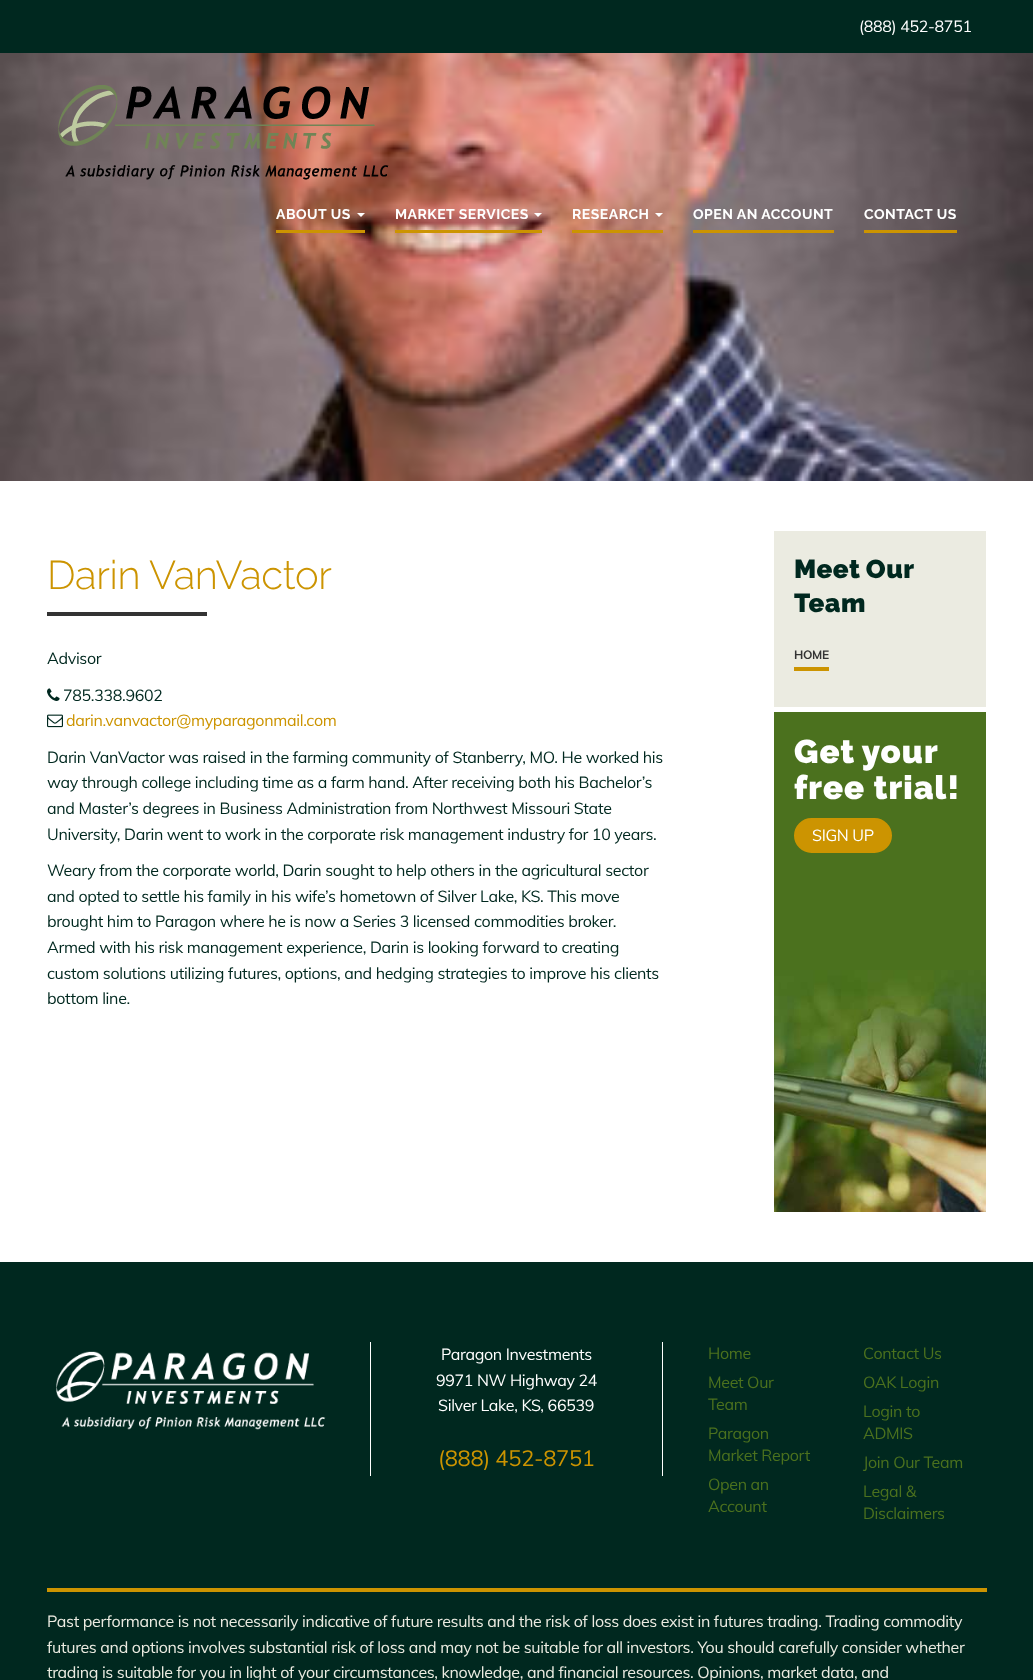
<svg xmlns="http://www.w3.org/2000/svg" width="1033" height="1680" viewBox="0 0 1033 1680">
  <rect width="100%" height="100%" fill="rgb(255,255,255)"/>
  <rect x="0" y="0" width="1033" height="53" fill="rgb(0,40,31)"/>
  <text x="859" y="32" font-family="Muli" font-size="16" letter-spacing="-0.32" fill="rgb(255,255,255)">(888) 452-8751</text>
  <image x="0" y="53" width="1033" height="428" href="pic1.png"/>
  <image x="58" y="85" width="331" height="95" href="pic2.png"/>
  <rect x="276" y="230" width="89" height="3" fill="rgb(204,148,1)"/>
  <text x="276" y="219" font-family="Raleway" font-size="14" font-weight="bold" letter-spacing="0.5" fill="rgb(255,255,255)">ABOUT US</text>
  <path d="M357 213H365L361 217Z" fill="rgb(255,255,255)"/>
  <rect x="395" y="230" width="147" height="3" fill="rgb(204,148,1)"/>
  <text x="395" y="219" font-family="Raleway" font-size="14" font-weight="bold" letter-spacing="0.5" fill="rgb(255,255,255)">MARKET SERVICES</text>
  <path d="M534 213H542L538 217Z" fill="rgb(255,255,255)"/>
  <rect x="572" y="230" width="91" height="3" fill="rgb(204,148,1)"/>
  <text x="572" y="219" font-family="Raleway" font-size="14" font-weight="bold" letter-spacing="0.5" fill="rgb(255,255,255)">RESEARCH</text>
  <path d="M655 213H663L659 217Z" fill="rgb(255,255,255)"/>
  <rect x="693" y="230" width="141" height="3" fill="rgb(204,148,1)"/>
  <text x="693" y="219" font-family="Raleway" font-size="14" font-weight="bold" letter-spacing="0.5" fill="rgb(255,255,255)">OPEN AN ACCOUNT</text>
  <rect x="864" y="230" width="93" height="3" fill="rgb(204,148,1)"/>
  <text x="864" y="219" font-family="Raleway" font-size="14" font-weight="bold" letter-spacing="0.5" fill="rgb(255,255,255)">CONTACT US</text>
  <text x="47" y="589" font-family="Raleway" font-size="40" font-weight="300" letter-spacing="-0.32" fill="rgb(204,148,1)">Darin VanVactor</text>
  <rect x="47" y="612" width="160" height="4" fill="rgb(51,51,51)"/>
  <text x="47" y="664" font-family="Muli" font-size="16" letter-spacing="-0.32" fill="rgb(0,40,31)">Advisor</text>
  <image x="47" y="688" width="13" height="13" href="pic3.png"/>
  <text x="63" y="701" font-family="Muli" font-size="16" letter-spacing="-0.32" fill="rgb(0,40,31)">785.338.9602</text>
  <image x="47" y="714" width="16" height="14" href="pic4.png"/>
  <text x="66" y="726" font-family="Muli" font-size="16" letter-spacing="-0.32" fill="rgb(204,148,1)">darin.vanvactor@myparagonmail.com</text>
  <g font-family="Muli" font-size="16" letter-spacing="-0.32" fill="rgb(0,40,31)">
    <text>
      <tspan x="47" y="763">Darin VanVactor was raised in the farming community of Stanberry, MO. He worked his</tspan>
      <tspan x="47" y="788">way through college including time as a farm hand. After receiving both his Bachelor’s</tspan>
      <tspan x="47" y="814">and Master’s degrees in Business Administration from Northwest Missouri State</tspan>
      <tspan x="47" y="840">University, Darin went to work in the corporate risk management industry for 10 years.</tspan>
    </text>
    <text>
      <tspan x="47" y="876">Weary from the corporate world, Darin sought to help others in the agricultural sector</tspan>
      <tspan x="47" y="902">and opted to settle his family in his wife’s hometown of Silver Lake, KS. This move</tspan>
      <tspan x="47" y="927">brought him to Paragon where he is now a Series 3 licensed commodities broker.</tspan>
      <tspan x="47" y="953">Armed with his risk management experience, Darin is looking forward to creating</tspan>
      <tspan x="47" y="979">custom solutions utilizing futures, options, and hedging strategies to improve his clients</tspan>
      <tspan x="47" y="1004">bottom line.</tspan>
    </text>
  </g>
  <rect x="774" y="531" width="212" height="176" fill="rgb(235,235,225)"/>
  <g font-family="Raleway" font-size="26" font-weight="900" letter-spacing="0.5" fill="rgb(0,40,31)">
    <text>
      <tspan x="794" y="578" word-spacing="-1">Meet Our</tspan>
      <tspan x="794" y="612">Team</tspan>
    </text>
  </g>
  <text x="794" y="659" font-family="Muli" font-size="12" font-weight="bold" letter-spacing="-0.32" fill="rgb(51,51,51)">HOME</text>
  <rect x="794" y="667" width="35" height="4" fill="rgb(204,148,1)"/>
  <rect x="774" y="712" width="212" height="258" fill="rgb(75,113,30)"/>
  <image x="774" y="970" width="212" height="242" href="pic5.png"/>
  <g font-family="Raleway" font-size="33" font-weight="900" letter-spacing="1" fill="rgb(255,255,255)">
    <text>
      <tspan x="794" y="763" word-spacing="-1">Get your</tspan>
      <tspan x="794" y="799">free trial!</tspan>
    </text>
  </g>
  <rect x="795" y="819" width="96" height="33" rx="16.5" fill="rgb(204,148,1)" stroke="rgb(204,148,1)" stroke-width="2"/>
  <text x="812" y="841" font-family="Muli" font-size="16" letter-spacing="-0.32" fill="rgb(255,255,255)">SIGN UP</text>
  <rect x="0" y="1262" width="1033" height="418" fill="rgb(0,40,31)"/>
  <image x="56" y="1351" width="270" height="79" href="pic6.png"/>
  <rect x="662" y="1342" width="1" height="134" fill="rgb(255,255,255)"/>
  <rect x="370" y="1342" width="1" height="134" fill="rgb(255,255,255)"/>
  <g font-family="Muli" font-size="16" letter-spacing="-0.32" fill="rgb(255,255,255)">
    <text x="441" y="1360">Paragon Investments</text>
    <text x="436" y="1386">9971 NW Highway 24</text>
    <text x="438" y="1411">Silver Lake, KS, 66539</text>
  </g>
  <text x="438" y="1466" font-family="Muli" font-size="22" letter-spacing="-0.32" fill="rgb(204,148,1)">(888) 452-8751</text>
  <g font-family="Muli" font-size="16" letter-spacing="-0.32" fill="rgb(75,113,30)">
    <text x="708" y="1359">Home</text>
    <text x="863" y="1359">Contact Us</text>
    <text>
      <tspan x="708" y="1388">Meet Our</tspan>
      <tspan x="708" y="1410">Team</tspan>
    </text>
    <text>
      <tspan x="863" y="1388">OAK Login</tspan>
      <tspan x="863" y="1417">Login to</tspan>
      <tspan x="863" y="1439">ADMIS</tspan>
    </text>
    <text>
      <tspan x="708" y="1439">Paragon</tspan>
      <tspan x="708" y="1461">Market Report</tspan>
    </text>
    <text x="863" y="1468">Join Our Team</text>
    <text>
      <tspan x="708" y="1490">Open an</tspan>
      <tspan x="708" y="1512">Account</tspan>
    </text>
    <text>
      <tspan x="863" y="1497">Legal &amp;</tspan>
      <tspan x="863" y="1519">Disclaimers</tspan>
    </text>
  </g>
  <rect x="47" y="1588" width="940" height="4" fill="rgb(204,148,1)"/>
  <g font-family="Muli" font-size="16" letter-spacing="-0.32" fill="rgb(235,235,225)">
    <text>
      <tspan x="47" y="1627">Past performance is not necessarily indicative of future results and the risk of loss does exist in futures trading. Trading commodity</tspan>
      <tspan x="47" y="1653">futures and options involves substantial risk of loss and may not be suitable for all investors. You should carefully consider whether</tspan>
      <tspan x="47" y="1678">trading is suitable for you in light of your circumstances, knowledge, and financial resources. Opinions, market data, and</tspan>
    </text>
  </g>
</svg>
